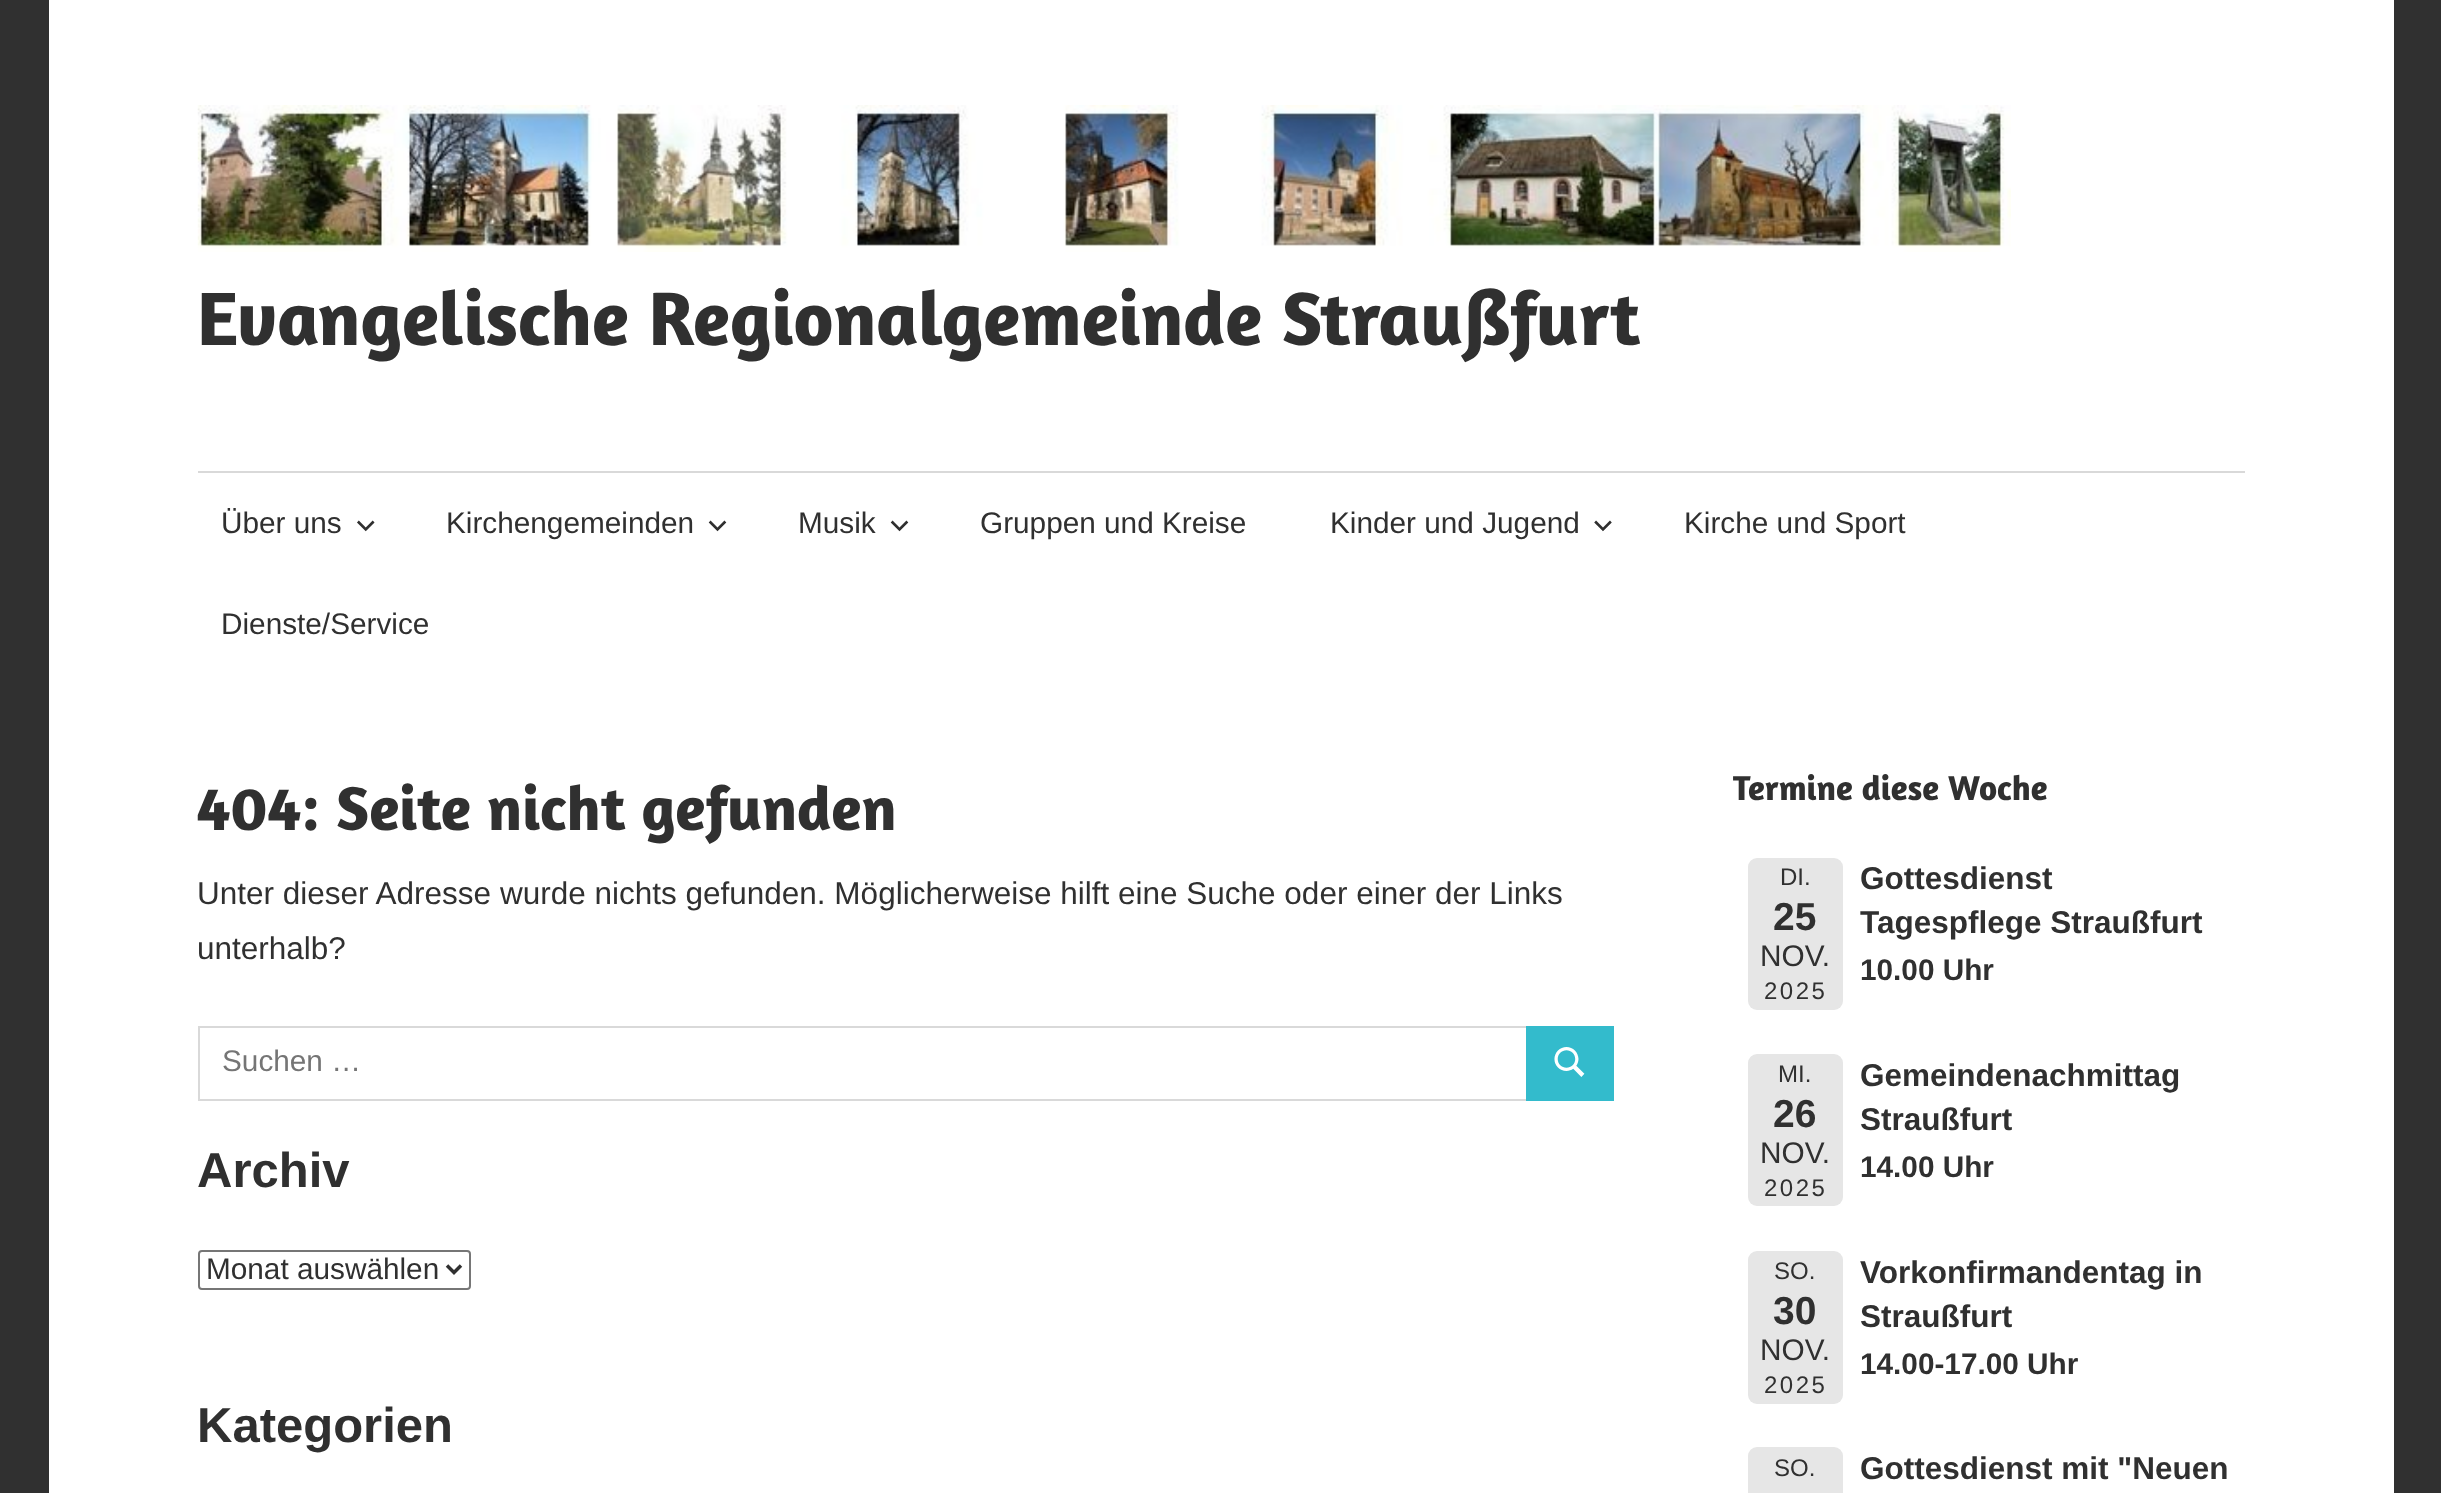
<svg xmlns="http://www.w3.org/2000/svg" width="2441" height="1493" viewBox="0 0 2441 1493">
  <rect width="100%" height="100%" fill="rgb(48,48,48)"/>
  <rect x="49" y="0" width="2345" height="1493" fill="rgb(255,255,255)"/>
  <image x="197" y="105" width="1814" height="147" href="pic1.png"/>
  <text x="197" y="345" font-family="Amaranth" font-size="77" font-weight="bold" fill="rgb(48,48,48)">Evangelische Regionalgemeinde Straußfurt</text>
  <rect x="198" y="471" width="2047" height="2" fill="rgb(217,217,217)"/>
  <text x="221" y="533" font-family="Liberation Sans" font-size="29.75" fill="rgb(48,48,48)">Über uns</text>
  <image x="357" y="520" width="18" height="12" href="pic2.png"/>
  <text x="446" y="533" font-family="Liberation Sans" font-size="29.75" fill="rgb(48,48,48)">Kirchengemeinden</text>
  <image x="708" y="520" width="19" height="12" href="pic3.png"/>
  <text x="798" y="533" font-family="Liberation Sans" font-size="29.75" fill="rgb(48,48,48)">Musik</text>
  <image x="890" y="520" width="19" height="12" href="pic3.png"/>
  <g font-family="Liberation Sans" font-size="29.75" fill="rgb(48,48,48)">
    <text x="980" y="533">Gruppen und Kreise</text>
    <text x="1330" y="533">Kinder und Jugend</text>
  </g>
  <image x="1594" y="520" width="18" height="12" href="pic4.png"/>
  <g font-family="Liberation Sans" font-size="29.75" fill="rgb(48,48,48)">
    <text x="1684" y="533">Kirche und Sport</text>
    <text x="221" y="634">Dienste/Service</text>
  </g>
  <text x="197" y="830" font-family="Amaranth" font-size="63" font-weight="bold" fill="rgb(48,48,48)">404: Seite nicht gefunden</text>
  <g font-family="Liberation Sans" font-size="31.5" fill="rgb(48,48,48)">
    <text>
      <tspan x="197" y="904">Unter dieser Adresse wurde nichts gefunden. Möglicherweise hilft eine Suche oder einer der Links</tspan>
      <tspan x="197" y="959">unterhalb?</tspan>
    </text>
  </g>
  <rect x="199" y="1027" width="1328" height="73" fill="none" stroke="rgb(217,217,217)" stroke-width="2"/>
  <text x="222" y="1071" font-family="Liberation Sans" font-size="29.75" fill="rgb(117,117,117)">Suchen …</text>
  <rect x="1526" y="1026" width="88" height="75" fill="rgb(51,187,204)"/>
  <image x="1554" y="1047" width="31" height="30" href="pic5.png"/>
  <text x="197" y="1187" font-family="Liberation Sans" font-size="49" font-weight="bold" fill="rgb(48,48,48)">Archiv</text>
  <rect x="199" y="1251" width="271" height="38" rx="3" fill="none" stroke="rgb(118,118,118)" stroke-width="2"/>
  <path d="M447 1265.5L454 1272.5L461 1265.5" fill="none" stroke="rgb(48,48,48)" stroke-width="3.5"/>
  <text x="206" y="1279" font-family="Liberation Sans" font-size="29.75" fill="rgb(48,48,48)">Monat auswählen</text>
  <text x="197" y="1442" font-family="Liberation Sans" font-size="49" font-weight="bold" fill="rgb(48,48,48)">Kategorien</text>
  <text x="1733" y="800" font-family="Amaranth" font-size="35" font-weight="bold" fill="rgb(48,48,48)">Termine diese Woche</text>
  <rect x="1748" y="858" width="95" height="152" rx="9" fill="rgb(230,230,230)"/>
  <text x="1780" y="885" font-family="Liberation Sans" font-size="24" fill="rgb(48,48,48)">DI.</text>
  <text x="1773" y="930" font-family="Liberation Sans" font-size="39" font-weight="bold" fill="rgb(48,48,48)">25</text>
  <text x="1760" y="966" font-family="Liberation Sans" font-size="29.75" fill="rgb(48,48,48)">NOV.</text>
  <text x="1764" y="999" font-family="Liberation Sans" font-size="24" letter-spacing="2.5" fill="rgb(48,48,48)">2025</text>
  <g font-family="Liberation Sans" font-size="31.5" font-weight="bold" fill="rgb(48,48,48)">
    <text>
      <tspan x="1860" y="889">Gottesdienst</tspan>
      <tspan x="1860" y="933">Tagespflege Straußfurt</tspan>
    </text>
  </g>
  <text x="1860" y="980" font-family="Liberation Sans" font-size="29.75" font-weight="bold" fill="rgb(48,48,48)">10.00 Uhr</text>
  <rect x="1748" y="1054" width="95" height="152" rx="9" fill="rgb(230,230,230)"/>
  <text x="1778" y="1082" font-family="Liberation Sans" font-size="24" fill="rgb(48,48,48)">MI.</text>
  <text x="1773" y="1127" font-family="Liberation Sans" font-size="39" font-weight="bold" fill="rgb(48,48,48)">26</text>
  <text x="1760" y="1163" font-family="Liberation Sans" font-size="29.75" fill="rgb(48,48,48)">NOV.</text>
  <text x="1764" y="1196" font-family="Liberation Sans" font-size="24" letter-spacing="2.5" fill="rgb(48,48,48)">2025</text>
  <g font-family="Liberation Sans" font-size="31.5" font-weight="bold" fill="rgb(48,48,48)">
    <text>
      <tspan x="1860" y="1086">Gemeindenachmittag</tspan>
      <tspan x="1860" y="1130">Straußfurt</tspan>
    </text>
  </g>
  <text x="1860" y="1177" font-family="Liberation Sans" font-size="29.75" font-weight="bold" fill="rgb(48,48,48)">14.00 Uhr</text>
  <rect x="1748" y="1251" width="95" height="153" rx="9" fill="rgb(230,230,230)"/>
  <text x="1774" y="1279" font-family="Liberation Sans" font-size="24" fill="rgb(48,48,48)">SO.</text>
  <text x="1773" y="1324" font-family="Liberation Sans" font-size="39" font-weight="bold" fill="rgb(48,48,48)">30</text>
  <text x="1760" y="1360" font-family="Liberation Sans" font-size="29.75" fill="rgb(48,48,48)">NOV.</text>
  <text x="1764" y="1393" font-family="Liberation Sans" font-size="24" letter-spacing="2.5" fill="rgb(48,48,48)">2025</text>
  <g font-family="Liberation Sans" font-size="31.5" font-weight="bold" fill="rgb(48,48,48)">
    <text>
      <tspan x="1860" y="1283">Vorkonfirmandentag in</tspan>
      <tspan x="1860" y="1327">Straußfurt</tspan>
    </text>
  </g>
  <text x="1860" y="1374" font-family="Liberation Sans" font-size="29.75" font-weight="bold" fill="rgb(48,48,48)">14.00-17.00 Uhr</text>
  <rect x="1748" y="1447" width="95" height="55" rx="9" fill="rgb(230,230,230)"/>
  <text x="1774" y="1476" font-family="Liberation Sans" font-size="24" fill="rgb(48,48,48)">SO.</text>
  <text x="1860" y="1479" font-family="Liberation Sans" font-size="31.5" font-weight="bold" fill="rgb(48,48,48)">Gottesdienst mit "Neuen</text>
</svg>
